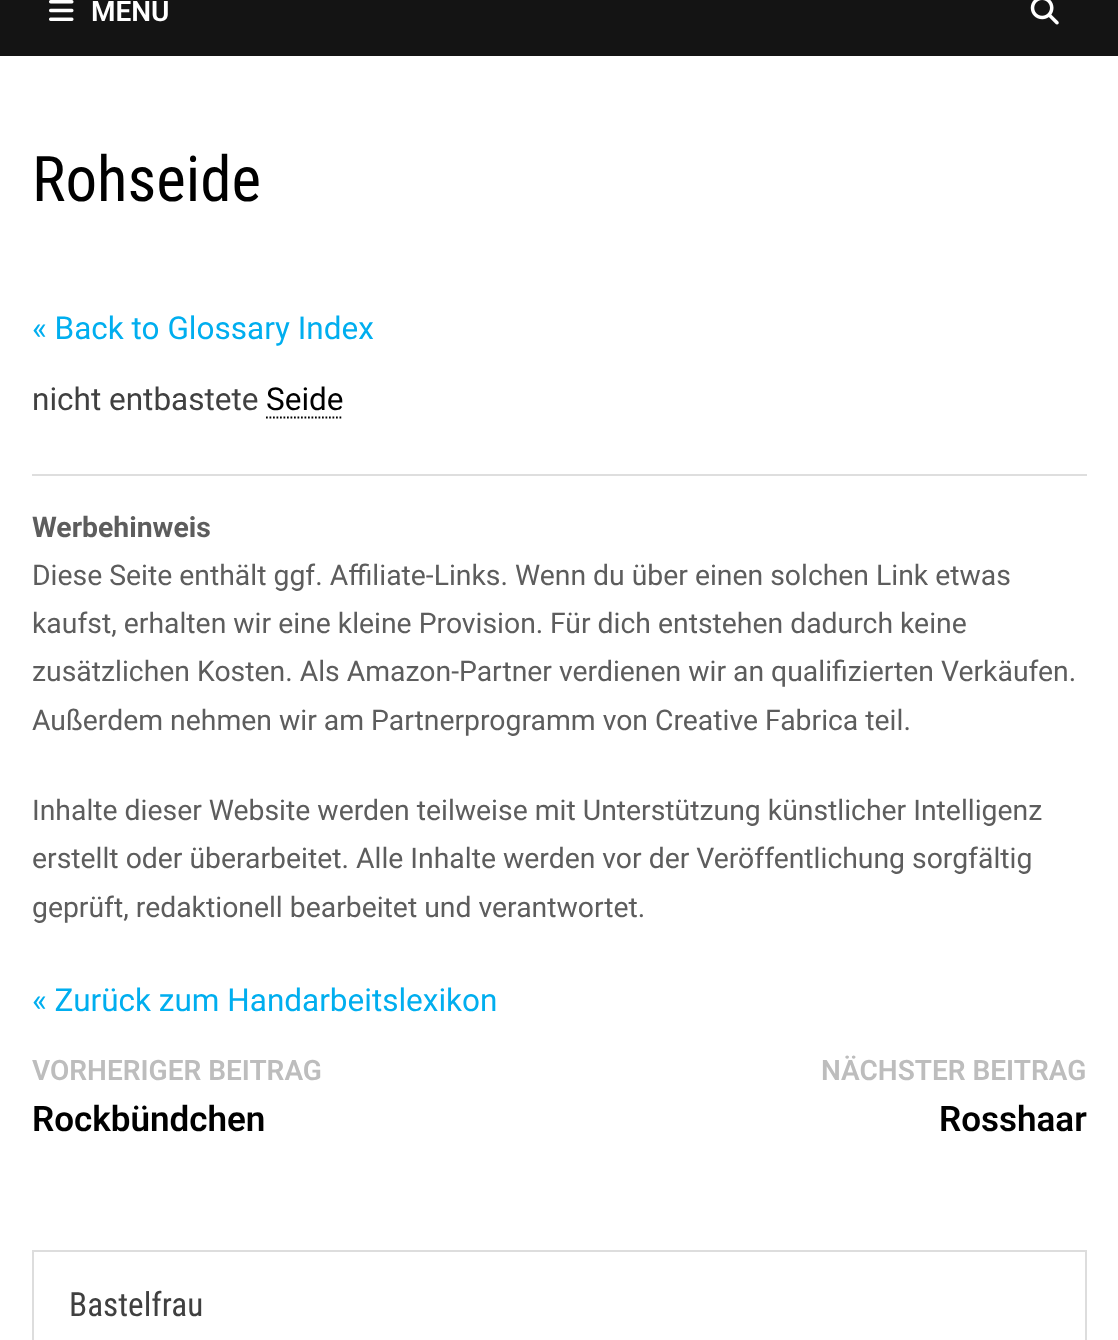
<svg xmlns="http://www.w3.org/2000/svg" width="1118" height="1340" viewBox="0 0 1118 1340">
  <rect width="100%" height="100%" fill="rgb(255,255,255)"/>
  <rect x="0" y="0" width="1118" height="56" fill="rgb(20,20,20)"/>
  <image x="49" y="0" width="25" height="21" href="pic1.png"/>
  <text x="91" y="21" font-family="Roboto" font-size="28" font-weight="600" fill="rgb(255,255,255)">MENÜ</text>
  <image x="1030" y="0" width="29" height="25" href="pic2.png"/>
  <text x="32" y="201" font-family="Roboto Condensed" font-size="63" fill="rgb(0,0,0)">Rohseide</text>
  <text x="32" y="339" font-family="Roboto" font-size="31.5" fill="rgb(0,174,239)">« Back to Glossary Index</text>
  <text x="32" y="410" font-family="Roboto" font-size="31.5" fill="rgb(64,64,64)">nicht entbastete</text>
  <text x="266" y="410" font-family="Roboto" font-size="31.5" fill="rgb(0,0,0)">Seide</text>
  <path d="M266 417.5H343" fill="none" stroke="rgb(0,0,0)" stroke-width="1.8" stroke-dasharray="1.75 1.75"/>
  <rect x="32" y="474" width="1055" height="2" fill="rgb(222,222,222)"/>
  <text x="32" y="537" font-family="Roboto" font-size="28.35" font-weight="bold" fill="rgb(93,93,93)">Werbehinweis</text>
  <g font-family="Roboto" font-size="28.35" fill="rgb(93,93,93)">
    <text>
      <tspan x="32" y="585">Diese Seite enthält ggf. Affiliate-Links. Wenn du über einen solchen Link etwas</tspan>
      <tspan x="32" y="633">kaufst, erhalten wir eine kleine Provision.</tspan>
    </text>
    <text x="550" y="633">Für dich entstehen dadurch keine</text>
    <text>
      <tspan x="32" y="681">zusätzlichen Kosten. Als Amazon-Partner verdienen wir an qualifizierten Verkäufen.</tspan>
      <tspan x="32" y="730">Außerdem nehmen wir am Partnerprogramm von Creative Fabrica teil.</tspan>
    </text>
    <text>
      <tspan x="32" y="820">Inhalte dieser Website werden teilweise mit Unterstützung künstlicher Intelligenz</tspan>
      <tspan x="32" y="868">erstellt oder überarbeitet. Alle Inhalte werden vor der Veröffentlichung sorgfältig</tspan>
      <tspan x="32" y="917">geprüft, redaktionell bearbeitet und verantwortet.</tspan>
    </text>
  </g>
  <text x="32" y="1011" font-family="Roboto" font-size="31.5" fill="rgb(0,174,239)">« Zurück zum Handarbeitslexikon</text>
  <text x="32" y="1080" font-family="Roboto" font-size="28" font-weight="600" fill="rgb(189,189,189)">VORHERIGER BEITRAG</text>
  <text x="32" y="1131" font-family="Roboto" font-size="35" font-weight="600" fill="rgb(0,0,0)">Rockbündchen</text>
  <text x="821" y="1080" font-family="Roboto" font-size="28" font-weight="600" fill="rgb(189,189,189)">NÄCHSTER BEITRAG</text>
  <text x="939" y="1131" font-family="Roboto" font-size="35" font-weight="600" fill="rgb(0,0,0)">Rosshaar</text>
  <rect x="33" y="1251" width="1053" height="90" fill="none" stroke="rgb(221,221,221)" stroke-width="2"/>
  <text x="69" y="1316" font-family="Roboto Condensed" font-size="33.25" fill="rgb(64,64,64)">Bastelfrau</text>
</svg>
